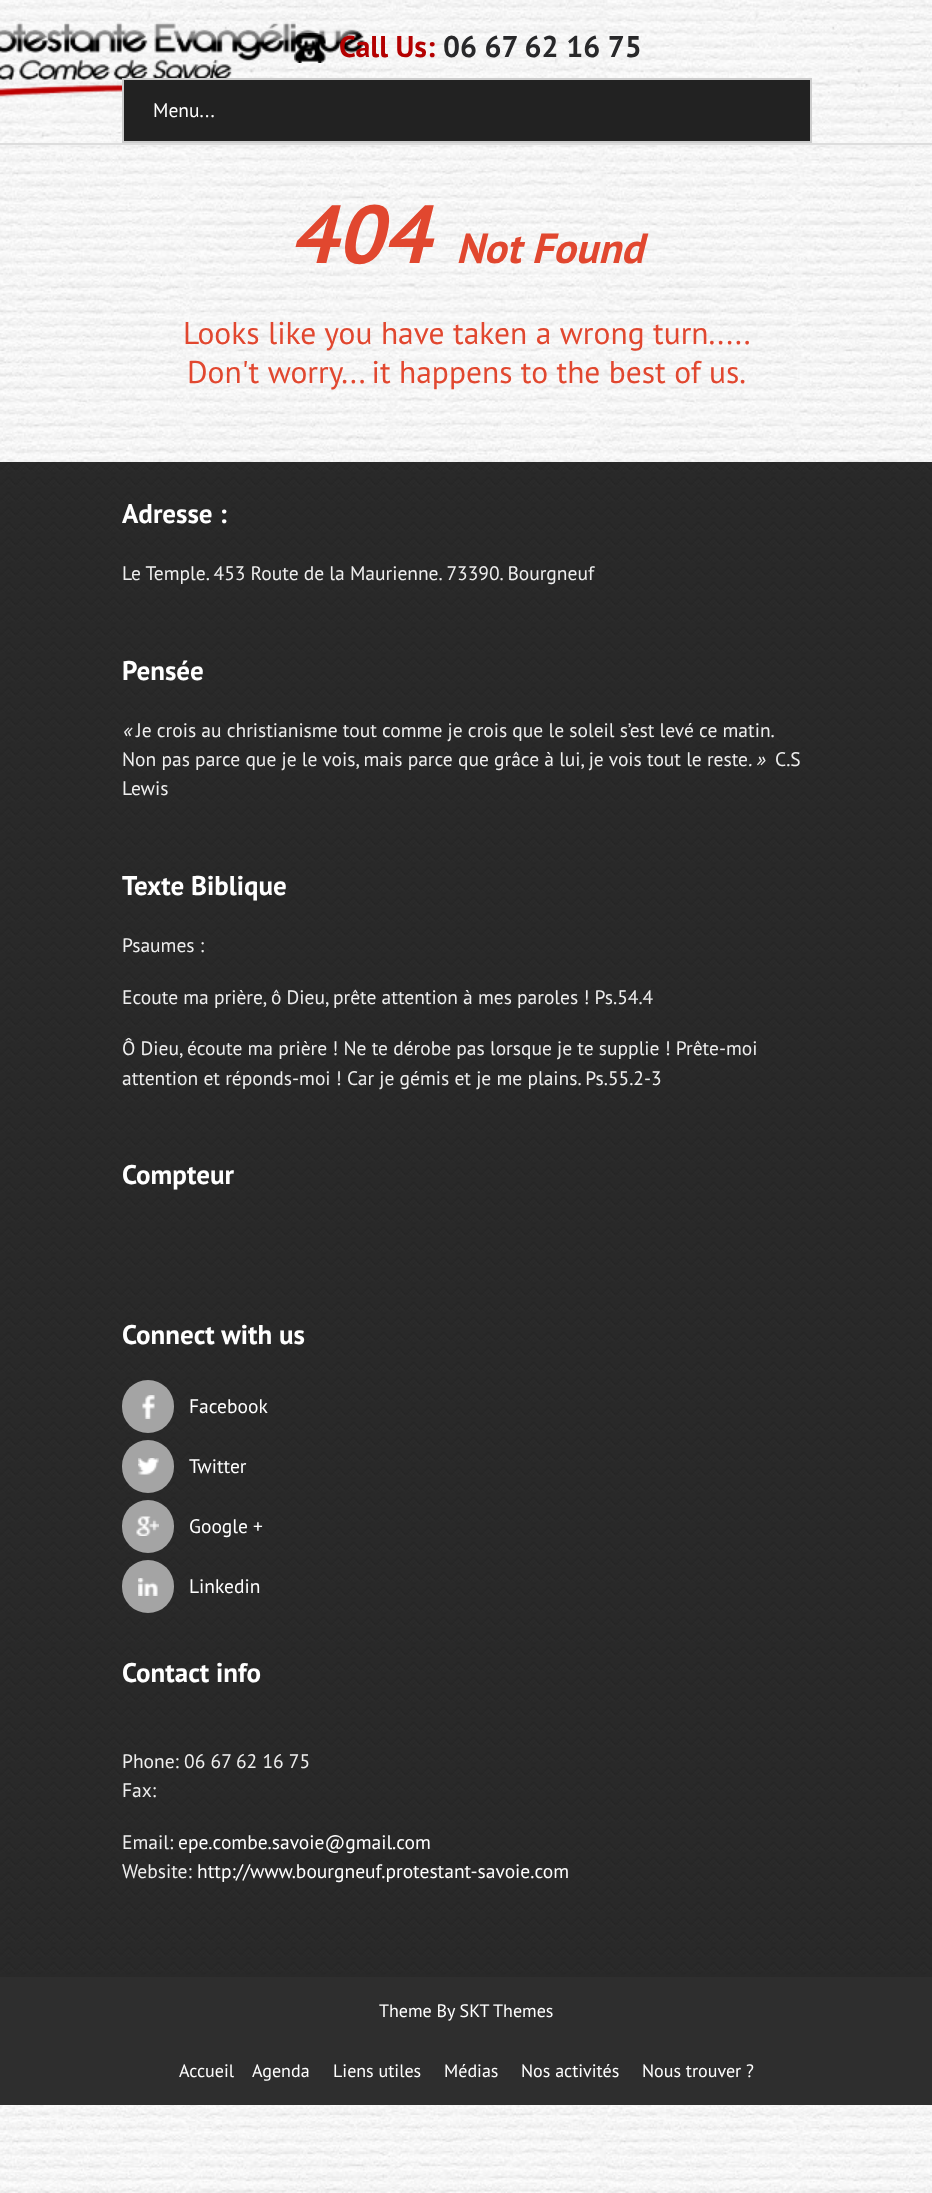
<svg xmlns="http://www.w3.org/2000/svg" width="932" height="2193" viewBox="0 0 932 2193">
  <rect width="100%" height="100%" fill="rgb(255,255,255)"/>
  <image x="0" y="0" width="932" height="2193" href="pic1.png"/>
  <image x="0" y="22" width="365" height="75" href="pic2.png"/>
  <rect x="0" y="143" width="932" height="2" fill="rgb(221,221,221)"/>
  <image x="294" y="33" width="32" height="30" href="pic3.png"/>
  <text x="339" y="57" font-family="PT Sans" font-size="30" font-weight="bold" fill="rgb(180,0,0)">Call Us:</text>
  <text x="443" y="57" font-family="PT Sans" font-size="30" font-weight="bold" fill="rgb(40,40,42)">06 67 62 16 75</text>
  <rect x="123" y="79" width="688" height="63" fill="rgb(34,34,34)" stroke="rgb(204,204,204)" stroke-width="2"/>
  <text x="153" y="117" font-family="PT Sans" font-size="19.5" fill="rgb(255,255,255)">Menu...</text>
  <text x="290" y="263" font-family="PT Sans" font-size="82" font-weight="bold" font-style="italic" fill="rgb(225,71,47)">404</text>
  <text x="456" y="263" font-family="PT Sans" font-size="42" font-weight="bold" font-style="italic" fill="rgb(225,71,47)">Not Found</text>
  <g font-family="PT Sans" font-size="31.5" fill="rgb(225,71,47)">
    <text x="183" y="344">Looks like you have taken a wrong turn.....</text>
    <text x="187" y="383">Don't worry... it happens to the best of us.</text>
  </g>
  <image x="0" y="462" width="932" height="1515" href="pic4.png"/>
  <text x="122" y="523" font-family="PT Sans" font-size="27" font-weight="bold" fill="rgb(255,255,255)">Adresse :</text>
  <text x="122" y="580" font-family="PT Sans" font-size="19.5" fill="rgb(238,238,238)">Le Temple. 453 Route de la Maurienne. 73390. Bourgneuf</text>
  <text x="122" y="680" font-family="PT Sans" font-size="27" font-weight="bold" fill="rgb(255,255,255)">Pensée</text>
  <text x="122" y="737" font-family="PT Sans" font-size="19.5" font-style="italic" fill="rgb(238,238,238)">«</text>
  <g font-family="PT Sans" font-size="19.5" fill="rgb(238,238,238)">
    <text x="136" y="737">Je crois au christianisme tout comme je crois que le soleil s’est levé ce matin.</text>
    <text x="122" y="766">Non pas parce que je le vois, mais parce que grâce à lui, je vois tout le reste</text>
  </g>
  <text x="748" y="766" font-family="PT Sans" font-size="19.5" font-style="italic" fill="rgb(238,238,238)">. »</text>
  <g font-family="PT Sans" font-size="19.5" fill="rgb(238,238,238)">
    <text x="775" y="766">C.S</text>
    <text x="122" y="795">Lewis</text>
  </g>
  <text x="122" y="895" font-family="PT Sans" font-size="27" font-weight="bold" fill="rgb(255,255,255)">Texte Biblique</text>
  <g font-family="PT Sans" font-size="19.5" fill="rgb(238,238,238)">
    <text x="122" y="952">Psaumes :</text>
    <text x="122" y="1004">Ecoute ma prière, ô Dieu, prête attention à mes paroles ! Ps.54.4</text>
    <text>
      <tspan x="122" y="1055">Ô Dieu, écoute ma prière ! Ne te dérobe pas lorsque je te supplie ! Prête-moi</tspan>
      <tspan x="122" y="1085">attention et réponds-moi ! Car je gémis et je me plains. Ps.55.2-3</tspan>
    </text>
  </g>
  <g font-family="PT Sans" font-size="27" font-weight="bold" fill="rgb(255,255,255)">
    <text x="122" y="1184">Compteur</text>
    <text x="122" y="1344">Connect with us</text>
  </g>
  <rect x="122" y="1380" width="52" height="53" rx="26" fill="rgb(164,164,164)"/>
  <image x="142" y="1395" width="13" height="24" href="pic5.png"/>
  <text x="189" y="1413" font-family="PT Sans" font-size="19.5" fill="rgb(255,255,255)">Facebook</text>
  <rect x="122" y="1440" width="52" height="53" rx="26" fill="rgb(164,164,164)"/>
  <image x="138" y="1458" width="21" height="17" href="pic6.png"/>
  <text x="189" y="1473" font-family="PT Sans" font-size="19.5" fill="rgb(255,255,255)">Twitter</text>
  <rect x="122" y="1500" width="52" height="53" rx="26" fill="rgb(164,164,164)"/>
  <image x="136" y="1516" width="23" height="20" href="pic7.png"/>
  <text x="189" y="1533" font-family="PT Sans" font-size="19.5" fill="rgb(255,255,255)">Google +</text>
  <rect x="122" y="1560" width="52" height="53" rx="26" fill="rgb(164,164,164)"/>
  <image x="138" y="1578" width="20" height="18" href="pic8.png"/>
  <text x="189" y="1593" font-family="PT Sans" font-size="19.5" fill="rgb(255,255,255)">Linkedin</text>
  <text x="122" y="1682" font-family="PT Sans" font-size="27" font-weight="bold" fill="rgb(255,255,255)">Contact info</text>
  <g font-family="PT Sans" font-size="19.5" fill="rgb(238,238,238)">
    <text>
      <tspan x="122" y="1768">Phone: 06 67 62 16 75</tspan>
      <tspan x="122" y="1797">Fax:</tspan>
    </text>
    <text x="122" y="1849">Email:</text>
  </g>
  <text x="178" y="1849" font-family="PT Sans" font-size="19.5" fill="rgb(255,255,255)">epe.combe.savoie@gmail.com</text>
  <text x="122" y="1878" font-family="PT Sans" font-size="19.5" fill="rgb(238,238,238)">Website:</text>
  <text x="197" y="1878" font-family="PT Sans" font-size="19.5" fill="rgb(255,255,255)">http://www.bourgneuf.protestant-savoie.com</text>
  <rect x="0" y="1977" width="932" height="128" fill="rgb(46,46,46)"/>
  <g font-family="PT Sans" font-size="18" fill="rgb(255,255,255)">
    <text x="379" y="2017">Theme By SKT Themes</text>
    <text x="179" y="2077">Accueil</text>
    <text x="252" y="2077">Agenda</text>
    <text x="333" y="2077">Liens utiles</text>
    <text x="444" y="2077">Médias</text>
    <text x="521" y="2077">Nos activités</text>
    <text x="642" y="2077">Nous trouver ?</text>
  </g>
</svg>
